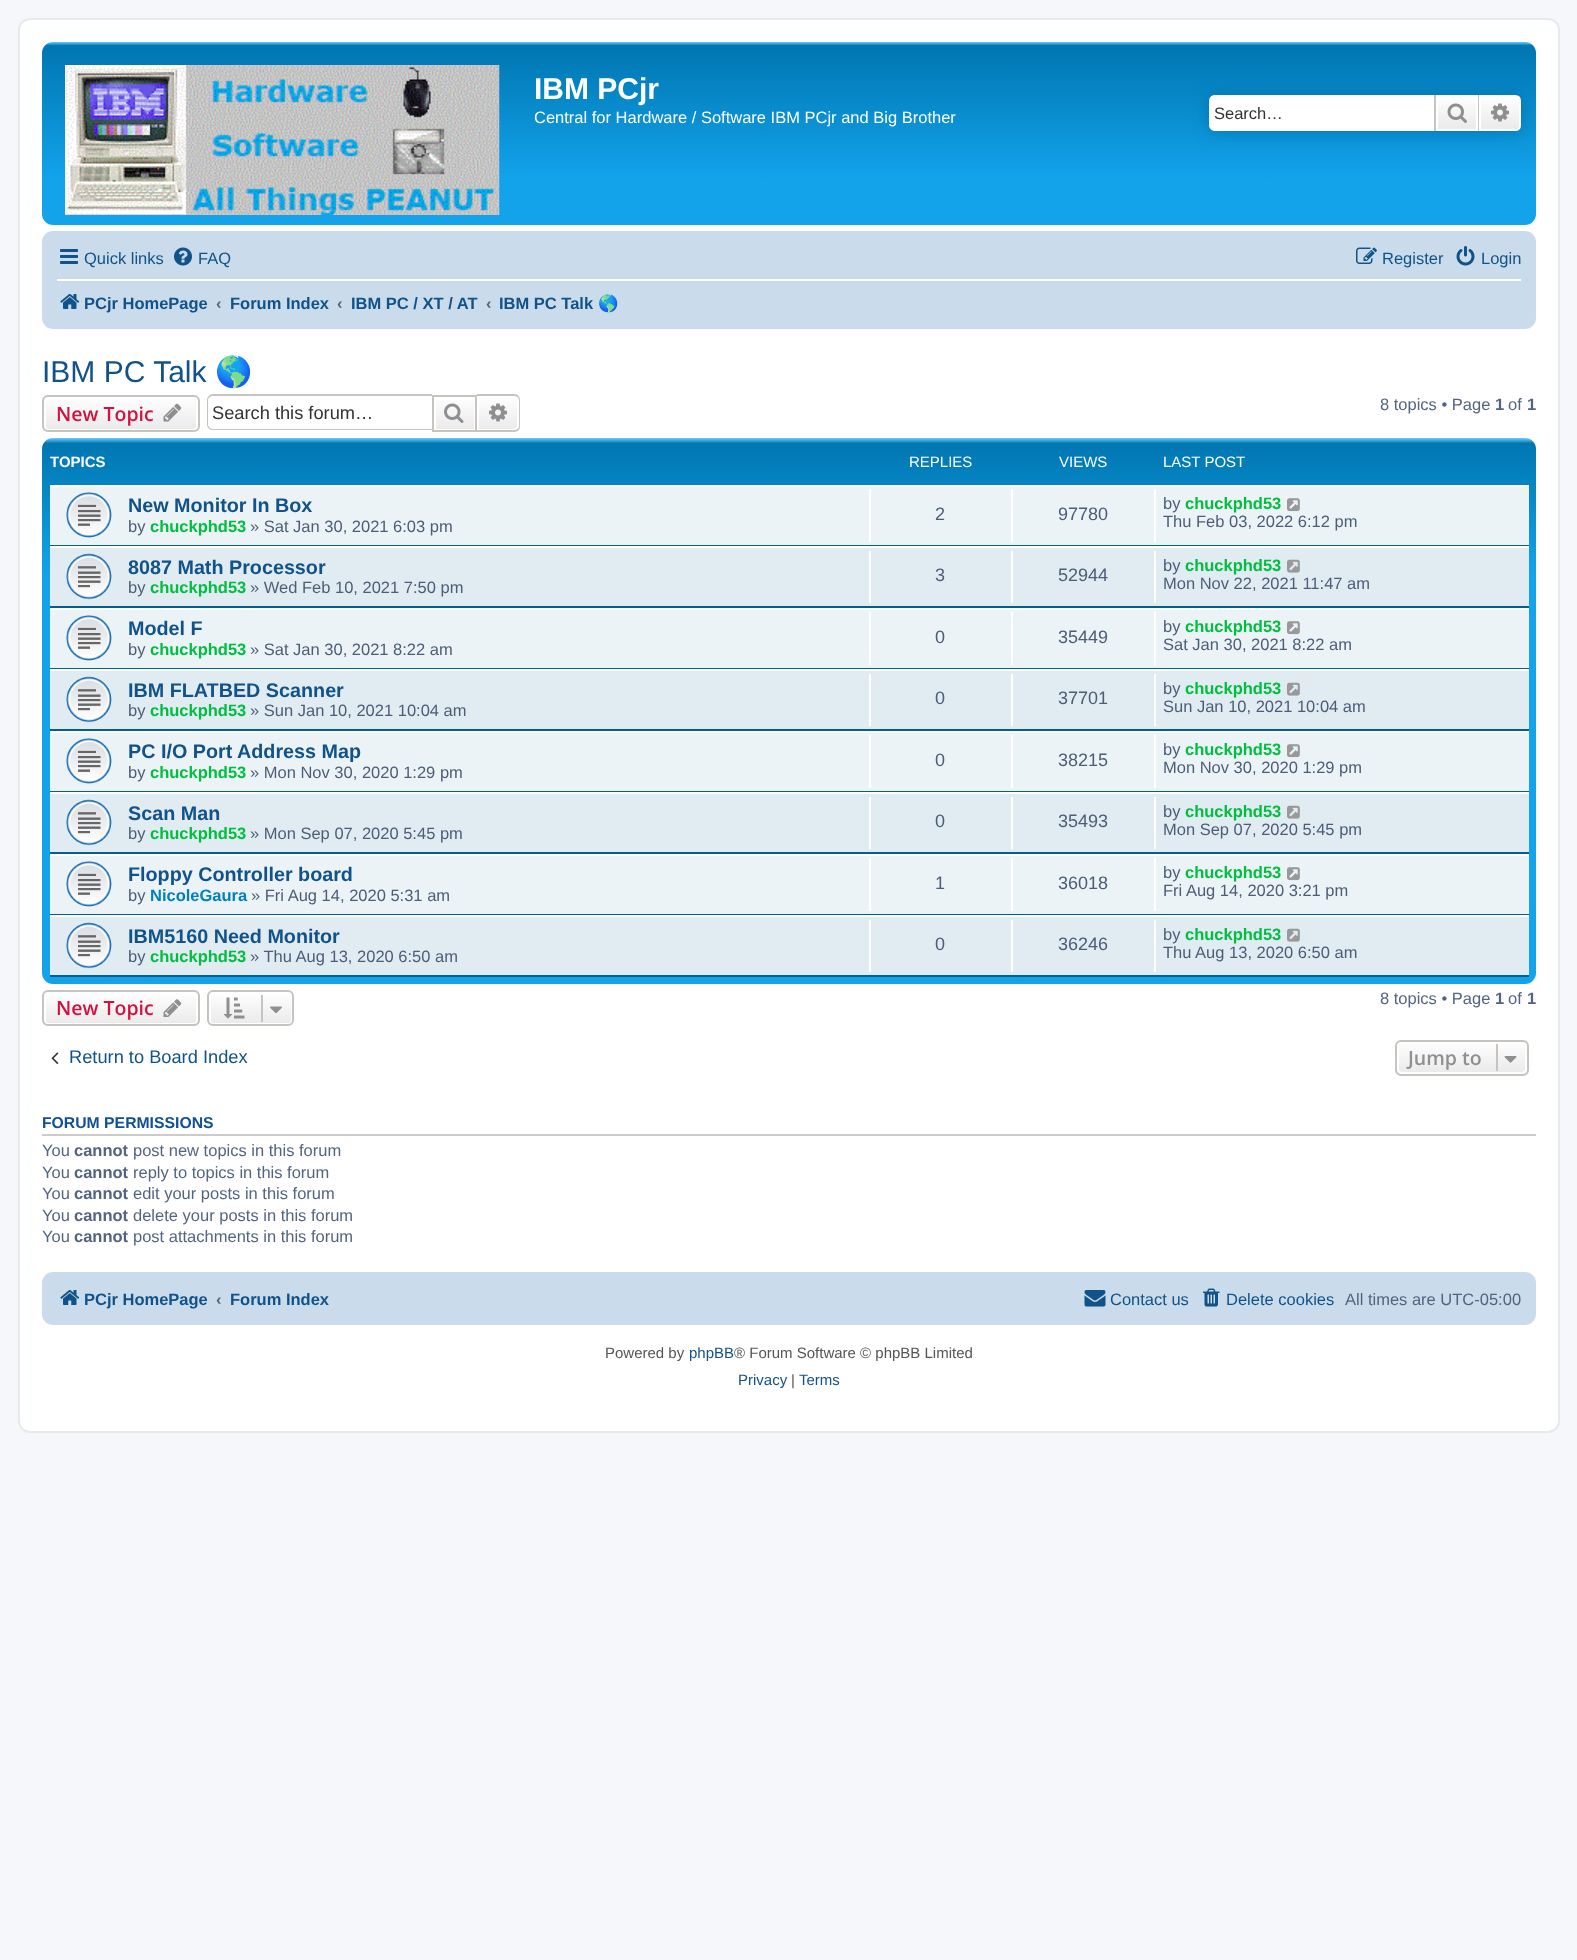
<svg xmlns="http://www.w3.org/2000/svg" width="1577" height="1960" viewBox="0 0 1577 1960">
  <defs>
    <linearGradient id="g1" gradientUnits="userSpaceOnUse" x1="789" y1="42" x2="789" y2="225"><stop offset="0" stop-color="rgb(106,206,255)"/><stop offset="0.02" stop-color="rgb(0,118,177)"/><stop offset="0.75" stop-color="rgb(18,163,235)"/><stop offset="1" stop-color="rgb(18,163,235)"/></linearGradient>
    <linearGradient id="g2" gradientUnits="userSpaceOnUse" x1="1457" y1="95" x2="1457" y2="131"><stop offset="0" stop-color="rgb(255,255,255)"/><stop offset="1" stop-color="rgb(233,233,233)"/></linearGradient>
    <linearGradient id="g3" gradientUnits="userSpaceOnUse" x1="1500" y1="95" x2="1500" y2="131"><stop offset="0" stop-color="rgb(255,255,255)"/><stop offset="1" stop-color="rgb(233,233,233)"/></linearGradient>
    <clipPath id="clip1"><rect x="42" y="395" width="158" height="37" rx="6"/></clipPath>
    <linearGradient id="g4" gradientUnits="userSpaceOnUse" x1="121" y1="396" x2="121" y2="431"><stop offset="0" stop-color="rgb(255,255,255)"/><stop offset="1" stop-color="rgb(233,233,233)"/></linearGradient>
    <linearGradient id="g5" gradientUnits="userSpaceOnUse" x1="455" y1="396" x2="455" y2="431"><stop offset="0" stop-color="rgb(255,255,255)"/><stop offset="1" stop-color="rgb(233,233,233)"/></linearGradient>
    <linearGradient id="g6" gradientUnits="userSpaceOnUse" x1="498" y1="396" x2="498" y2="431"><stop offset="0" stop-color="rgb(255,255,255)"/><stop offset="1" stop-color="rgb(233,233,233)"/></linearGradient>
    <linearGradient id="g7" gradientUnits="userSpaceOnUse" x1="789" y1="438" x2="789" y2="984"><stop offset="0" stop-color="rgb(106,206,255)"/><stop offset="0.01" stop-color="rgb(0,118,177)"/><stop offset="0.25" stop-color="rgb(18,163,235)"/><stop offset="1" stop-color="rgb(18,163,235)"/></linearGradient>
    <clipPath id="clip2"><rect x="50" y="446" width="1479" height="39"/></clipPath>
    <clipPath id="clip3"><rect x="42" y="990" width="158" height="36" rx="6"/></clipPath>
    <linearGradient id="g8" gradientUnits="userSpaceOnUse" x1="121" y1="992" x2="121" y2="1025"><stop offset="0" stop-color="rgb(255,255,255)"/><stop offset="1" stop-color="rgb(233,233,233)"/></linearGradient>
    <clipPath id="clip4"><rect x="207" y="990" width="87" height="36" rx="6"/></clipPath>
    <linearGradient id="g9" gradientUnits="userSpaceOnUse" x1="251" y1="992" x2="251" y2="1025"><stop offset="0" stop-color="rgb(255,255,255)"/><stop offset="1" stop-color="rgb(233,233,233)"/></linearGradient>
    <clipPath id="clip5"><rect x="1395" y="1040" width="134" height="36" rx="6"/></clipPath>
    <linearGradient id="g10" gradientUnits="userSpaceOnUse" x1="1462" y1="1041" x2="1462" y2="1074"><stop offset="0" stop-color="rgb(255,255,255)"/><stop offset="1" stop-color="rgb(233,233,233)"/></linearGradient>
  </defs>
  <rect width="100%" height="100%" fill="rgb(245,247,250)"/>
  <rect x="19" y="19" width="1540" height="1413" rx="11" fill="rgb(255,255,255)" stroke="rgb(230,233,237)" stroke-width="2"/>
  <rect x="42" y="42" width="1494" height="183" rx="11" fill="url(#g1)"/>
  <image x="65" y="65" width="435" height="150" href="pic1.png"/>
  <text x="534" y="99" font-family="Liberation Sans" font-size="30" font-weight="bold" fill="rgb(255,255,255)">IBM PCjr</text>
  <text x="534" y="123" font-family="Liberation Sans" font-size="16.5" fill="rgb(255,255,255)">Central for Hardware / Software IBM PCjr and Big Brother</text>
  <rect x="1209" y="95" width="312" height="36" rx="6" fill="rgb(0,117,176)" filter="blur(7.5px)"/>
  <path d="M1215 95H1434V131H1215C1211.5 131 1209 128.5 1209 125V101C1209 97.5 1211.5 95 1215 95Z" fill="rgb(255,255,255)"/>
  <text x="1214" y="119" font-family="Liberation Sans" font-size="16.5" fill="rgb(51,51,51)">Search…</text>
  <rect x="1438" y="97" width="38" height="32" fill="url(#g2)"/>
  <rect x="1437" y="96" width="40" height="34" fill="none" stroke="rgb(255,255,255)" stroke-width="2"/>
  <rect x="1478" y="95" width="1" height="36" fill="rgb(199,195,191)"/>
  <rect x="1434" y="95" width="2" height="36" fill="rgb(199,195,191)"/>
  <image x="1447" y="103" width="20" height="20" href="pic2.png"/>
  <path d="M1480 96H1515C1518 96 1520 98 1520 101V125C1520 128 1518 130 1515 130H1480Z" fill="url(#g3)" stroke="rgb(255,255,255)" stroke-width="2"/>
  <image x="1491" y="103" width="18" height="19" href="pic3.png"/>
  <rect x="42" y="231" width="1494" height="98" rx="11" fill="rgb(202,220,235)"/>
  <image x="60" y="249" width="18" height="15" href="pic4.png"/>
  <text x="84" y="264" font-family="Liberation Sans" font-size="16.5" fill="rgb(16,82,137)">Quick links</text>
  <image x="174" y="247" width="18" height="19" href="pic5.png"/>
  <text x="198" y="264" font-family="Liberation Sans" font-size="16.5" fill="rgb(16,82,137)">FAQ</text>
  <image x="1356" y="247" width="21" height="17" href="pic6.png"/>
  <text x="1382" y="264" font-family="Liberation Sans" font-size="16.5" fill="rgb(16,82,137)">Register</text>
  <image x="1456" y="246" width="19" height="20" href="pic7.png"/>
  <text x="1481" y="264" font-family="Liberation Sans" font-size="16.5" fill="rgb(16,82,137)">Login</text>
  <rect x="57" y="279" width="1464" height="2" fill="rgb(255,255,255)"/>
  <image x="60" y="294" width="20" height="15" href="pic8.png"/>
  <text x="84" y="309" font-family="Liberation Sans" font-size="16.5" font-weight="bold" fill="rgb(16,82,137)">PCjr HomePage</text>
  <text x="216" y="309" font-family="Liberation Sans" font-size="16.5" font-weight="bold" fill="rgb(83,100,130)">‹</text>
  <text x="230" y="309" font-family="Liberation Sans" font-size="16.5" font-weight="bold" fill="rgb(16,82,137)">Forum Index</text>
  <text x="337" y="309" font-family="Liberation Sans" font-size="16.5" font-weight="bold" fill="rgb(83,100,130)">‹</text>
  <text x="351" y="309" font-family="Liberation Sans" font-size="16.5" font-weight="bold" fill="rgb(16,82,137)">IBM PC / XT / AT</text>
  <text x="486" y="309" font-family="Liberation Sans" font-size="16.5" font-weight="bold" fill="rgb(83,100,130)">‹</text>
  <text x="499" y="309" font-family="Liberation Sans" font-size="16.5" font-weight="bold" fill="rgb(16,82,137)">IBM PC Talk</text>
  <text x="598" y="309" font-family="Noto Color Emoji" font-size="16.5" font-weight="bold" fill="rgb(16,82,137)">🌎</text>
  <text x="42" y="382" font-family="Liberation Sans" font-size="30" fill="rgb(16,82,137)">IBM PC Talk</text>
  <text x="215" y="382" font-family="Noto Color Emoji" font-size="30" fill="rgb(16,82,137)">🌎</text>
  <g clip-path="url(#clip1)">
    <rect x="42" y="396" width="158" height="35" fill="url(#g4)"/>
  </g>
  <rect x="45" y="397" width="152" height="33" rx="4" fill="none" stroke="rgb(255,255,255)" stroke-width="2"/>
  <rect x="43" y="396" width="156" height="35" rx="5" fill="none" stroke="rgb(199,195,191)" stroke-width="2"/>
  <text x="56" y="421" font-family="Open Sans" font-size="19.5" font-weight="600" fill="rgb(211,17,65)">New Topic</text>
  <image x="163" y="403" width="19" height="19" href="pic9.png"/>
  <path d="M213 394H432V430H213C210 430 207 428 207 424V400C207 397 210 394 213 394ZM213 396H432V429H213C211 429 208 427 208 424V400C208 398 211 396 213 396Z" fill="rgb(199,195,191)" fill-rule="evenodd"/>
  <text x="212" y="419" font-family="Liberation Sans" font-size="18.25" fill="rgb(51,51,51)">Search this forum…</text>
  <rect x="436" y="400" width="38" height="29" fill="url(#g5)"/>
  <rect x="433" y="396" width="43" height="35" fill="none" stroke="rgb(199,195,191)" stroke-width="2"/>
  <image x="444" y="403" width="20" height="20" href="pic10.png"/>
  <path d="M478 397H514C516 397 518 399 518 401V426C518 428 516 430 514 430H478Z" fill="url(#g6)" stroke="rgb(255,255,255)" stroke-width="2"/>
  <path d="M477 394H514C518 394 520 397 520 400V426C520 429 518 432 514 432H477ZM477 396H514C517 396 519 398 519 400V426C519 428 517 430 514 430H477Z" fill="rgb(199,195,191)" fill-rule="evenodd"/>
  <image x="489" y="403" width="18" height="19" href="pic11.png"/>
  <text x="1380" y="410" font-family="Liberation Sans" font-size="16.5" fill="rgb(83,100,130)">8 topics • Page</text>
  <text x="1495" y="410" font-family="Liberation Sans" font-size="16.5" font-weight="bold" fill="rgb(83,100,130)">1</text>
  <text x="1508" y="410" font-family="Liberation Sans" font-size="16.5" fill="rgb(83,100,130)">of</text>
  <text x="1527" y="410" font-family="Liberation Sans" font-size="16.5" font-weight="bold" fill="rgb(83,100,130)">1</text>
  <rect x="42" y="438" width="1494" height="546" rx="11" fill="url(#g7)"/>
  <g clip-path="url(#clip2)">
    <text x="50" y="467" font-family="Liberation Sans" font-size="15" font-weight="bold" fill="rgb(255,255,255)">TOPICS</text>
  </g>
  <g font-family="Liberation Sans" font-size="15" fill="rgb(255,255,255)">
    <text x="909" y="467">REPLIES</text>
    <text x="1059" y="467">VIEWS</text>
    <text x="1163" y="467">LAST POST</text>
  </g>
  <rect x="50" y="487" width="1479" height="58" fill="rgb(236,243,247)"/>
  <rect x="50" y="485" width="1479" height="2" fill="rgb(255,255,255)"/>
  <rect x="50" y="545" width="1479" height="1" fill="rgb(0,96,143)"/>
  <image x="66" y="492" width="46" height="46" href="pic12.png"/>
  <text x="128" y="512" font-family="Liberation Sans" font-size="19.75" font-weight="bold" fill="rgb(16,82,137)">New Monitor In Box</text>
  <text x="128" y="532" font-family="Liberation Sans" font-size="16.5" fill="rgb(76,93,119)">by</text>
  <text x="150" y="532" font-family="Liberation Sans" font-size="16.5" font-weight="bold" fill="rgb(0,191,64)">chuckphd53</text>
  <text x="250" y="532" font-family="Liberation Sans" font-size="16.5" fill="rgb(76,93,119)">» Sat Jan 30, 2021 6:03 pm</text>
  <rect x="869" y="489" width="2" height="53" fill="rgb(255,255,255)"/>
  <text x="935" y="520" font-family="Liberation Sans" font-size="18" fill="rgb(76,93,119)">2</text>
  <rect x="1011" y="489" width="2" height="53" fill="rgb(255,255,255)"/>
  <text x="1058" y="520" font-family="Liberation Sans" font-size="18" fill="rgb(76,93,119)">97780</text>
  <rect x="1154" y="489" width="2" height="53" fill="rgb(255,255,255)"/>
  <text x="1163" y="509" font-family="Liberation Sans" font-size="16.5" fill="rgb(76,93,119)">by</text>
  <text x="1185" y="509" font-family="Liberation Sans" font-size="16.5" font-weight="bold" fill="rgb(0,191,64)">chuckphd53</text>
  <image x="1287" y="498" width="13" height="14" href="pic13.png"/>
  <text x="1163" y="527" font-family="Liberation Sans" font-size="16.5" fill="rgb(76,93,119)">Thu Feb 03, 2022 6:12 pm</text>
  <rect x="50" y="548" width="1479" height="58" fill="rgb(225,235,242)"/>
  <rect x="50" y="546" width="1479" height="2" fill="rgb(255,255,255)"/>
  <rect x="50" y="606" width="1479" height="2" fill="rgb(0,96,143)"/>
  <image x="66" y="553" width="46" height="47" href="pic14.png"/>
  <text x="128" y="574" font-family="Liberation Sans" font-size="19.75" font-weight="bold" fill="rgb(16,82,137)">8087 Math Processor</text>
  <text x="128" y="593" font-family="Liberation Sans" font-size="16.5" fill="rgb(76,93,119)">by</text>
  <text x="150" y="593" font-family="Liberation Sans" font-size="16.5" font-weight="bold" fill="rgb(0,191,64)">chuckphd53</text>
  <text x="250" y="593" font-family="Liberation Sans" font-size="16.5" fill="rgb(76,93,119)">» Wed Feb 10, 2021 7:50 pm</text>
  <rect x="869" y="551" width="2" height="52" fill="rgb(255,255,255)"/>
  <text x="935" y="581" font-family="Liberation Sans" font-size="18" fill="rgb(76,93,119)">3</text>
  <rect x="1011" y="551" width="2" height="52" fill="rgb(255,255,255)"/>
  <text x="1058" y="581" font-family="Liberation Sans" font-size="18" fill="rgb(76,93,119)">52944</text>
  <rect x="1154" y="551" width="2" height="52" fill="rgb(255,255,255)"/>
  <text x="1163" y="571" font-family="Liberation Sans" font-size="16.5" fill="rgb(76,93,119)">by</text>
  <text x="1185" y="571" font-family="Liberation Sans" font-size="16.5" font-weight="bold" fill="rgb(0,191,64)">chuckphd53</text>
  <image x="1287" y="559" width="13" height="14" href="pic15.png"/>
  <text x="1163" y="589" font-family="Liberation Sans" font-size="16.5" fill="rgb(76,93,119)">Mon Nov 22, 2021 11:47 am</text>
  <rect x="50" y="610" width="1479" height="58" fill="rgb(236,243,247)"/>
  <rect x="50" y="608" width="1479" height="2" fill="rgb(255,255,255)"/>
  <rect x="50" y="668" width="1479" height="1" fill="rgb(0,96,143)"/>
  <image x="66" y="615" width="46" height="46" href="pic12.png"/>
  <text x="128" y="635" font-family="Liberation Sans" font-size="19.75" font-weight="bold" fill="rgb(16,82,137)">Model F</text>
  <text x="128" y="655" font-family="Liberation Sans" font-size="16.5" fill="rgb(76,93,119)">by</text>
  <text x="150" y="655" font-family="Liberation Sans" font-size="16.5" font-weight="bold" fill="rgb(0,191,64)">chuckphd53</text>
  <text x="250" y="655" font-family="Liberation Sans" font-size="16.5" fill="rgb(76,93,119)">» Sat Jan 30, 2021 8:22 am</text>
  <rect x="869" y="612" width="2" height="53" fill="rgb(255,255,255)"/>
  <text x="935" y="643" font-family="Liberation Sans" font-size="18" fill="rgb(76,93,119)">0</text>
  <rect x="1011" y="612" width="2" height="53" fill="rgb(255,255,255)"/>
  <text x="1058" y="643" font-family="Liberation Sans" font-size="18" fill="rgb(76,93,119)">35449</text>
  <rect x="1154" y="612" width="2" height="53" fill="rgb(255,255,255)"/>
  <text x="1163" y="632" font-family="Liberation Sans" font-size="16.5" fill="rgb(76,93,119)">by</text>
  <text x="1185" y="632" font-family="Liberation Sans" font-size="16.5" font-weight="bold" fill="rgb(0,191,64)">chuckphd53</text>
  <image x="1287" y="621" width="13" height="14" href="pic13.png"/>
  <text x="1163" y="650" font-family="Liberation Sans" font-size="16.5" fill="rgb(76,93,119)">Sat Jan 30, 2021 8:22 am</text>
  <rect x="50" y="671" width="1479" height="58" fill="rgb(225,235,242)"/>
  <rect x="50" y="669" width="1479" height="2" fill="rgb(255,255,255)"/>
  <rect x="50" y="729" width="1479" height="2" fill="rgb(0,96,143)"/>
  <image x="66" y="676" width="46" height="47" href="pic14.png"/>
  <text x="128" y="697" font-family="Liberation Sans" font-size="19.75" font-weight="bold" fill="rgb(16,82,137)">IBM FLATBED Scanner</text>
  <text x="128" y="716" font-family="Liberation Sans" font-size="16.5" fill="rgb(76,93,119)">by</text>
  <text x="150" y="716" font-family="Liberation Sans" font-size="16.5" font-weight="bold" fill="rgb(0,191,64)">chuckphd53</text>
  <text x="250" y="716" font-family="Liberation Sans" font-size="16.5" fill="rgb(76,93,119)">» Sun Jan 10, 2021 10:04 am</text>
  <rect x="869" y="674" width="2" height="52" fill="rgb(255,255,255)"/>
  <text x="935" y="704" font-family="Liberation Sans" font-size="18" fill="rgb(76,93,119)">0</text>
  <rect x="1011" y="674" width="2" height="52" fill="rgb(255,255,255)"/>
  <text x="1058" y="704" font-family="Liberation Sans" font-size="18" fill="rgb(76,93,119)">37701</text>
  <rect x="1154" y="674" width="2" height="52" fill="rgb(255,255,255)"/>
  <text x="1163" y="694" font-family="Liberation Sans" font-size="16.5" fill="rgb(76,93,119)">by</text>
  <text x="1185" y="694" font-family="Liberation Sans" font-size="16.5" font-weight="bold" fill="rgb(0,191,64)">chuckphd53</text>
  <image x="1287" y="682" width="13" height="14" href="pic15.png"/>
  <text x="1163" y="712" font-family="Liberation Sans" font-size="16.5" fill="rgb(76,93,119)">Sun Jan 10, 2021 10:04 am</text>
  <rect x="50" y="733" width="1479" height="58" fill="rgb(236,243,247)"/>
  <rect x="50" y="731" width="1479" height="2" fill="rgb(255,255,255)"/>
  <rect x="50" y="791" width="1479" height="1" fill="rgb(0,96,143)"/>
  <image x="66" y="738" width="46" height="46" href="pic12.png"/>
  <text x="128" y="758" font-family="Liberation Sans" font-size="19.75" font-weight="bold" fill="rgb(16,82,137)">PC I/O Port Address Map</text>
  <text x="128" y="778" font-family="Liberation Sans" font-size="16.5" fill="rgb(76,93,119)">by</text>
  <text x="150" y="778" font-family="Liberation Sans" font-size="16.5" font-weight="bold" fill="rgb(0,191,64)">chuckphd53</text>
  <text x="250" y="778" font-family="Liberation Sans" font-size="16.5" fill="rgb(76,93,119)">» Mon Nov 30, 2020 1:29 pm</text>
  <rect x="869" y="735" width="2" height="53" fill="rgb(255,255,255)"/>
  <text x="935" y="766" font-family="Liberation Sans" font-size="18" fill="rgb(76,93,119)">0</text>
  <rect x="1011" y="735" width="2" height="53" fill="rgb(255,255,255)"/>
  <text x="1058" y="766" font-family="Liberation Sans" font-size="18" fill="rgb(76,93,119)">38215</text>
  <rect x="1154" y="735" width="2" height="53" fill="rgb(255,255,255)"/>
  <text x="1163" y="755" font-family="Liberation Sans" font-size="16.5" fill="rgb(76,93,119)">by</text>
  <text x="1185" y="755" font-family="Liberation Sans" font-size="16.5" font-weight="bold" fill="rgb(0,191,64)">chuckphd53</text>
  <image x="1287" y="744" width="13" height="14" href="pic13.png"/>
  <text x="1163" y="773" font-family="Liberation Sans" font-size="16.5" fill="rgb(76,93,119)">Mon Nov 30, 2020 1:29 pm</text>
  <rect x="50" y="794" width="1479" height="58" fill="rgb(225,235,242)"/>
  <rect x="50" y="792" width="1479" height="2" fill="rgb(255,255,255)"/>
  <rect x="50" y="852" width="1479" height="2" fill="rgb(0,96,143)"/>
  <image x="66" y="799" width="46" height="47" href="pic14.png"/>
  <text x="128" y="820" font-family="Liberation Sans" font-size="19.75" font-weight="bold" fill="rgb(16,82,137)">Scan Man</text>
  <text x="128" y="839" font-family="Liberation Sans" font-size="16.5" fill="rgb(76,93,119)">by</text>
  <text x="150" y="839" font-family="Liberation Sans" font-size="16.5" font-weight="bold" fill="rgb(0,191,64)">chuckphd53</text>
  <text x="250" y="839" font-family="Liberation Sans" font-size="16.5" fill="rgb(76,93,119)">» Mon Sep 07, 2020 5:45 pm</text>
  <rect x="869" y="797" width="2" height="52" fill="rgb(255,255,255)"/>
  <text x="935" y="827" font-family="Liberation Sans" font-size="18" fill="rgb(76,93,119)">0</text>
  <rect x="1011" y="797" width="2" height="52" fill="rgb(255,255,255)"/>
  <text x="1058" y="827" font-family="Liberation Sans" font-size="18" fill="rgb(76,93,119)">35493</text>
  <rect x="1154" y="797" width="2" height="52" fill="rgb(255,255,255)"/>
  <text x="1163" y="817" font-family="Liberation Sans" font-size="16.5" fill="rgb(76,93,119)">by</text>
  <text x="1185" y="817" font-family="Liberation Sans" font-size="16.5" font-weight="bold" fill="rgb(0,191,64)">chuckphd53</text>
  <image x="1287" y="805" width="13" height="14" href="pic15.png"/>
  <text x="1163" y="835" font-family="Liberation Sans" font-size="16.5" fill="rgb(76,93,119)">Mon Sep 07, 2020 5:45 pm</text>
  <rect x="50" y="856" width="1479" height="58" fill="rgb(236,243,247)"/>
  <rect x="50" y="854" width="1479" height="2" fill="rgb(255,255,255)"/>
  <rect x="50" y="914" width="1479" height="1" fill="rgb(0,96,143)"/>
  <image x="66" y="861" width="46" height="46" href="pic12.png"/>
  <text x="128" y="881" font-family="Liberation Sans" font-size="19.75" font-weight="bold" fill="rgb(16,82,137)">Floppy Controller board</text>
  <text x="128" y="901" font-family="Liberation Sans" font-size="16.5" fill="rgb(76,93,119)">by</text>
  <text x="150" y="901" font-family="Liberation Sans" font-size="16.5" font-weight="bold" fill="rgb(0,128,191)">NicoleGaura</text>
  <text x="251" y="901" font-family="Liberation Sans" font-size="16.5" fill="rgb(76,93,119)">» Fri Aug 14, 2020 5:31 am</text>
  <rect x="869" y="858" width="2" height="53" fill="rgb(255,255,255)"/>
  <text x="935" y="889" font-family="Liberation Sans" font-size="18" fill="rgb(76,93,119)">1</text>
  <rect x="1011" y="858" width="2" height="53" fill="rgb(255,255,255)"/>
  <text x="1058" y="889" font-family="Liberation Sans" font-size="18" fill="rgb(76,93,119)">36018</text>
  <rect x="1154" y="858" width="2" height="53" fill="rgb(255,255,255)"/>
  <text x="1163" y="878" font-family="Liberation Sans" font-size="16.5" fill="rgb(76,93,119)">by</text>
  <text x="1185" y="878" font-family="Liberation Sans" font-size="16.5" font-weight="bold" fill="rgb(0,191,64)">chuckphd53</text>
  <image x="1287" y="867" width="13" height="14" href="pic13.png"/>
  <text x="1163" y="896" font-family="Liberation Sans" font-size="16.5" fill="rgb(76,93,119)">Fri Aug 14, 2020 3:21 pm</text>
  <rect x="50" y="917" width="1479" height="58" fill="rgb(225,235,242)"/>
  <rect x="50" y="915" width="1479" height="2" fill="rgb(255,255,255)"/>
  <rect x="50" y="975" width="1479" height="2" fill="rgb(0,96,143)"/>
  <image x="66" y="922" width="46" height="47" href="pic14.png"/>
  <text x="128" y="943" font-family="Liberation Sans" font-size="19.75" font-weight="bold" fill="rgb(16,82,137)">IBM5160 Need Monitor</text>
  <text x="128" y="962" font-family="Liberation Sans" font-size="16.5" fill="rgb(76,93,119)">by</text>
  <text x="150" y="962" font-family="Liberation Sans" font-size="16.5" font-weight="bold" fill="rgb(0,191,64)">chuckphd53</text>
  <text x="250" y="962" font-family="Liberation Sans" font-size="16.5" fill="rgb(76,93,119)">» Thu Aug 13, 2020 6:50 am</text>
  <rect x="869" y="920" width="2" height="52" fill="rgb(255,255,255)"/>
  <text x="935" y="950" font-family="Liberation Sans" font-size="18" fill="rgb(76,93,119)">0</text>
  <rect x="1011" y="920" width="2" height="52" fill="rgb(255,255,255)"/>
  <text x="1058" y="950" font-family="Liberation Sans" font-size="18" fill="rgb(76,93,119)">36246</text>
  <rect x="1154" y="920" width="2" height="52" fill="rgb(255,255,255)"/>
  <text x="1163" y="940" font-family="Liberation Sans" font-size="16.5" fill="rgb(76,93,119)">by</text>
  <text x="1185" y="940" font-family="Liberation Sans" font-size="16.5" font-weight="bold" fill="rgb(0,191,64)">chuckphd53</text>
  <image x="1287" y="928" width="13" height="14" href="pic15.png"/>
  <text x="1163" y="958" font-family="Liberation Sans" font-size="16.5" fill="rgb(76,93,119)">Thu Aug 13, 2020 6:50 am</text>
  <g clip-path="url(#clip3)">
    <rect x="42" y="992" width="158" height="33" fill="url(#g8)"/>
  </g>
  <rect x="45" y="993" width="152" height="31" rx="4" fill="none" stroke="rgb(255,255,255)" stroke-width="2"/>
  <rect x="43" y="991" width="156" height="34" rx="5" fill="none" stroke="rgb(199,195,191)" stroke-width="2"/>
  <text x="56" y="1015" font-family="Open Sans" font-size="19.5" font-weight="600" fill="rgb(211,17,65)">New Topic</text>
  <image x="163" y="999" width="19" height="18" href="pic16.png"/>
  <g clip-path="url(#clip4)">
    <rect x="207" y="992" width="87" height="33" fill="url(#g9)"/>
  </g>
  <rect x="210" y="993" width="82" height="31" rx="4" fill="none" stroke="rgb(255,255,255)" stroke-width="2"/>
  <rect x="208" y="991" width="85" height="34" rx="5" fill="none" stroke="rgb(199,195,191)" stroke-width="2"/>
  <image x="224" y="997" width="21" height="22" href="pic17.png"/>
  <rect x="261" y="995" width="2" height="27" fill="rgb(199,195,191)"/>
  <image x="270" y="1006" width="12" height="8" href="pic18.png"/>
  <text x="1380" y="1004" font-family="Liberation Sans" font-size="16.5" fill="rgb(83,100,130)">8 topics • Page</text>
  <text x="1495" y="1004" font-family="Liberation Sans" font-size="16.5" font-weight="bold" fill="rgb(83,100,130)">1</text>
  <text x="1508" y="1004" font-family="Liberation Sans" font-size="16.5" fill="rgb(83,100,130)">of</text>
  <text x="1527" y="1004" font-family="Liberation Sans" font-size="16.5" font-weight="bold" fill="rgb(83,100,130)">1</text>
  <image x="51" y="1052" width="8" height="12" href="pic19.png"/>
  <text x="69" y="1063" font-family="Liberation Sans" font-size="18.25" fill="rgb(16,82,137)">Return to Board Index</text>
  <g clip-path="url(#clip5)">
    <rect x="1395" y="1041" width="134" height="33" fill="url(#g10)"/>
  </g>
  <rect x="1398" y="1042" width="128" height="31" rx="4" fill="none" stroke="rgb(255,255,255)" stroke-width="2"/>
  <rect x="1396" y="1041" width="132" height="34" rx="5" fill="none" stroke="rgb(199,195,191)" stroke-width="2"/>
  <text x="1408" y="1065" font-family="Open Sans" font-size="19.5" font-weight="600" fill="rgb(143,143,143)">Jump to</text>
  <rect x="1496" y="1044" width="2" height="27" fill="rgb(199,195,191)"/>
  <image x="1504" y="1056" width="13" height="7" href="pic20.png"/>
  <rect x="42" y="1134" width="1494" height="2" fill="rgb(204,204,204)"/>
  <text x="42" y="1128" font-family="Liberation Sans" font-size="15.75" font-weight="bold" fill="rgb(17,80,152)">FORUM PERMISSIONS</text>
  <text x="42" y="1156" font-family="Liberation Sans" font-size="16.5" fill="rgb(83,100,130)">You</text>
  <text x="74" y="1156" font-family="Liberation Sans" font-size="16.5" font-weight="bold" fill="rgb(83,100,130)">cannot</text>
  <g font-family="Liberation Sans" font-size="16.5" fill="rgb(83,100,130)">
    <text x="133" y="1156">post new topics in this forum</text>
    <text x="42" y="1178">You</text>
  </g>
  <text x="74" y="1178" font-family="Liberation Sans" font-size="16.5" font-weight="bold" fill="rgb(83,100,130)">cannot</text>
  <g font-family="Liberation Sans" font-size="16.5" fill="rgb(83,100,130)">
    <text x="133" y="1178">reply to topics in this forum</text>
    <text x="42" y="1199">You</text>
  </g>
  <text x="74" y="1199" font-family="Liberation Sans" font-size="16.5" font-weight="bold" fill="rgb(83,100,130)">cannot</text>
  <g font-family="Liberation Sans" font-size="16.5" fill="rgb(83,100,130)">
    <text x="133" y="1199">edit your posts in this forum</text>
    <text x="42" y="1221">You</text>
  </g>
  <text x="74" y="1221" font-family="Liberation Sans" font-size="16.5" font-weight="bold" fill="rgb(83,100,130)">cannot</text>
  <g font-family="Liberation Sans" font-size="16.5" fill="rgb(83,100,130)">
    <text x="133" y="1221">delete your posts in this forum</text>
    <text x="42" y="1242">You</text>
  </g>
  <text x="74" y="1242" font-family="Liberation Sans" font-size="16.5" font-weight="bold" fill="rgb(83,100,130)">cannot</text>
  <text x="133" y="1242" font-family="Liberation Sans" font-size="16.5" fill="rgb(83,100,130)">post attachments in this forum</text>
  <rect x="42" y="1272" width="1494" height="53" rx="11" fill="rgb(202,220,235)"/>
  <image x="60" y="1290" width="20" height="15" href="pic8.png"/>
  <text x="84" y="1305" font-family="Liberation Sans" font-size="16.5" font-weight="bold" fill="rgb(16,82,137)">PCjr HomePage</text>
  <text x="216" y="1305" font-family="Liberation Sans" font-size="16.5" font-weight="bold" fill="rgb(83,100,130)">‹</text>
  <text x="230" y="1305" font-family="Liberation Sans" font-size="16.5" font-weight="bold" fill="rgb(16,82,137)">Forum Index</text>
  <image x="1084" y="1290" width="22" height="17" href="pic21.png"/>
  <text x="1110" y="1305" font-family="Liberation Sans" font-size="16.5" fill="rgb(16,82,137)">Contact us</text>
  <image x="1203" y="1288" width="17" height="19" href="pic22.png"/>
  <text x="1226" y="1305" font-family="Liberation Sans" font-size="16.5" fill="rgb(16,82,137)">Delete cookies</text>
  <text x="1345" y="1305" font-family="Liberation Sans" font-size="16.5" fill="rgb(83,100,130)">All times are UTC-05:00</text>
  <text x="605" y="1358" font-family="Liberation Sans" font-size="15" fill="rgb(85,85,85)">Powered by</text>
  <text x="689" y="1358" font-family="Liberation Sans" font-size="15" fill="rgb(16,82,137)">phpBB</text>
  <text x="734" y="1358" font-family="Liberation Sans" font-size="15" fill="rgb(85,85,85)">® Forum Software © phpBB Limited</text>
  <text x="738" y="1385" font-family="Liberation Sans" font-size="15" fill="rgb(16,82,137)">Privacy</text>
  <text x="791" y="1385" font-family="Liberation Sans" font-size="15" fill="rgb(85,85,85)">|</text>
  <text x="799" y="1385" font-family="Liberation Sans" font-size="15" fill="rgb(16,82,137)">Terms</text>
</svg>
